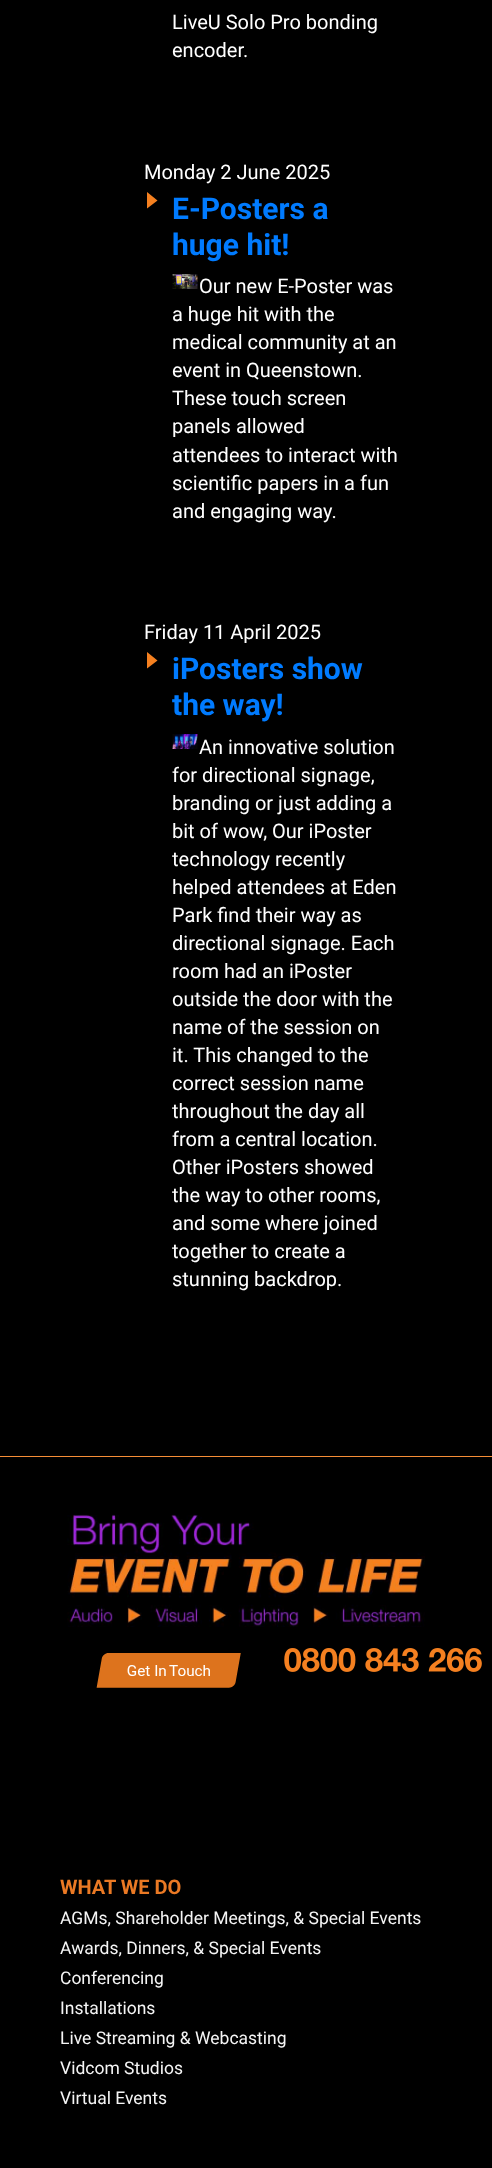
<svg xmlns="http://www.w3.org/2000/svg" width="492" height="2168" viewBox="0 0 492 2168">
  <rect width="100%" height="100%" fill="rgb(0,0,0)"/>
  <g font-family="Roboto" font-size="20" fill="rgb(255,255,255)">
    <text>
      <tspan x="172" y="29">LiveU Solo Pro bonding</tspan>
      <tspan x="172" y="57">encoder.</tspan>
    </text>
    <text x="144" y="179">Monday 2 June 2025</text>
  </g>
  <path d="M147 192V208.5L157.5 200.5Z" fill="rgb(245,128,32)"/>
  <g font-family="Roboto" font-size="30" font-weight="bold" fill="rgb(0,123,255)">
    <text>
      <tspan x="172" y="219">E-Posters a</tspan>
      <tspan x="172" y="255">huge hit!</tspan>
    </text>
  </g>
  <image x="172" y="274" width="26" height="15" href="pic1.png"/>
  <g font-family="Roboto" font-size="20" fill="rgb(255,255,255)">
    <text x="199" y="293">Our new E-Poster was</text>
    <text>
      <tspan x="172" y="321">a huge hit with the</tspan>
      <tspan x="172" y="349">medical community at an</tspan>
      <tspan x="172" y="377">event in Queenstown.</tspan>
      <tspan x="172" y="405">These touch screen</tspan>
      <tspan x="172" y="433">panels allowed</tspan>
      <tspan x="172" y="462">attendees to interact with</tspan>
      <tspan x="172" y="490">scientific papers in a fun</tspan>
      <tspan x="172" y="518">and engaging way.</tspan>
    </text>
    <text x="144" y="639">Friday 11 April 2025</text>
  </g>
  <path d="M147 652V668.5L157.5 660.5Z" fill="rgb(245,128,32)"/>
  <g font-family="Roboto" font-size="30" font-weight="bold" fill="rgb(0,123,255)">
    <text>
      <tspan x="172" y="679">iPosters show</tspan>
      <tspan x="172" y="715">the way!</tspan>
    </text>
  </g>
  <image x="172" y="734" width="26" height="15" href="pic2.png"/>
  <g font-family="Roboto" font-size="20" fill="rgb(255,255,255)">
    <text x="199" y="754">An innovative solution</text>
    <text>
      <tspan x="172" y="782">for directional signage,</tspan>
      <tspan x="172" y="810">branding or just adding a</tspan>
      <tspan x="172" y="838">bit of wow, Our iPoster</tspan>
      <tspan x="172" y="866">technology recently</tspan>
      <tspan x="172" y="894">helped attendees at Eden</tspan>
      <tspan x="172" y="922">Park find their way as</tspan>
      <tspan x="172" y="950">directional signage. Each</tspan>
      <tspan x="172" y="978">room had an iPoster</tspan>
      <tspan x="172" y="1006">outside the door with the</tspan>
      <tspan x="172" y="1034">name of the session on</tspan>
      <tspan x="172" y="1062">it. This changed to the</tspan>
      <tspan x="172" y="1090">correct session name</tspan>
      <tspan x="172" y="1118">throughout the day all</tspan>
      <tspan x="172" y="1146">from a central location.</tspan>
      <tspan x="172" y="1174">Other iPosters showed</tspan>
      <tspan x="172" y="1202">the way to other rooms,</tspan>
      <tspan x="172" y="1230">and some where joined</tspan>
      <tspan x="172" y="1258">together to create a</tspan>
      <tspan x="172" y="1286">stunning backdrop.</tspan>
    </text>
  </g>
  <rect x="0" y="1456" width="492" height="1" fill="rgb(246,141,54)"/>
  <image x="67" y="1514" width="358" height="113" href="pic3.png"/>
  <image x="96" y="1653" width="145" height="35" href="pic4.png"/>
  <image x="284" y="1648" width="198" height="24" href="pic5.png"/>
  <text x="60" y="1894" font-family="Roboto" font-size="20" font-weight="bold" fill="rgb(234,121,36)">WHAT WE DO</text>
  <g font-family="Roboto" font-size="17.5" fill="rgb(245,245,245)">
    <text>
      <tspan x="60" y="1924">AGMs, Shareholder Meetings, &amp; Special Events</tspan>
      <tspan x="60" y="1954">Awards, Dinners, &amp; Special Events</tspan>
      <tspan x="60" y="1984">Conferencing</tspan>
      <tspan x="60" y="2014">Installations</tspan>
      <tspan x="60" y="2044">Live Streaming &amp; Webcasting</tspan>
      <tspan x="60" y="2074">Vidcom Studios</tspan>
      <tspan x="60" y="2104">Virtual Events</tspan>
    </text>
  </g>
</svg>
